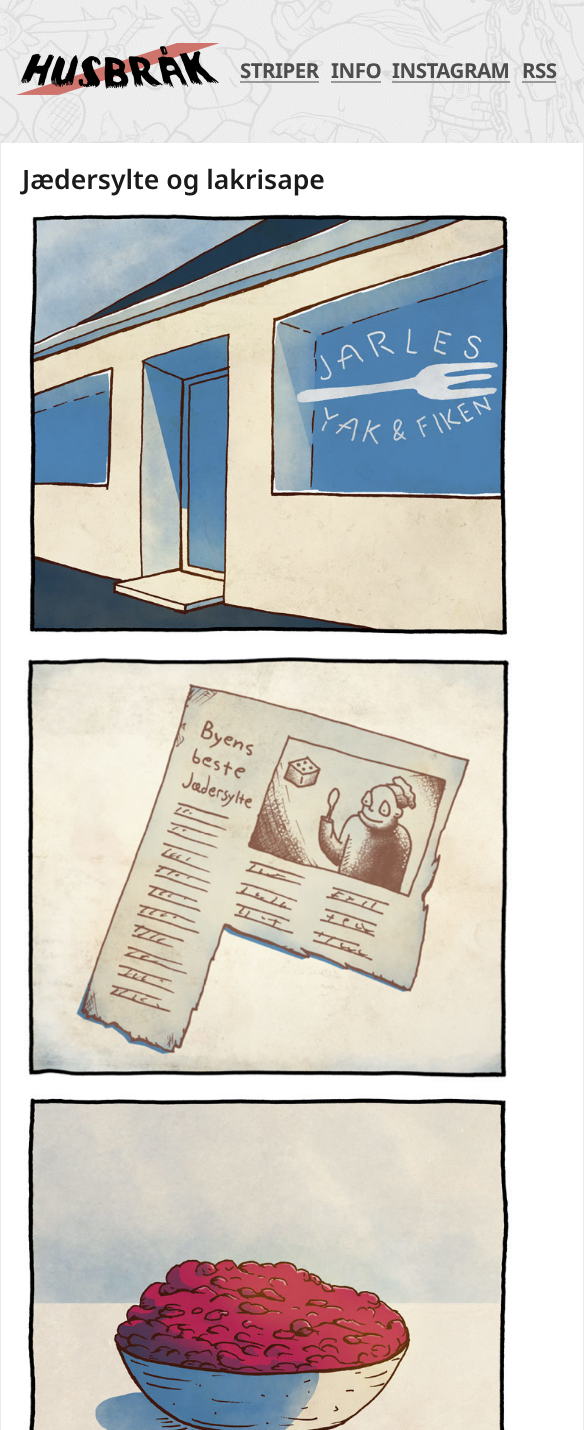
<svg xmlns="http://www.w3.org/2000/svg" width="584" height="1430" viewBox="0 0 584 1430">
  <rect width="100%" height="100%" fill="rgb(255,255,255)"/>
  <image x="0" y="0" width="584" height="143" href="pic1.png"/>
  <image x="16" y="43" width="204" height="52" href="pic2.png"/>
  <text x="240" y="78" font-family="Noto Sans" font-size="20.5" font-weight="bold" letter-spacing="-0.5" fill="rgb(77,77,77)">STRIPER</text>
  <rect x="240" y="81" width="79" height="2" fill="rgb(153,153,153)"/>
  <text x="331" y="78" font-family="Noto Sans" font-size="20.5" font-weight="bold" letter-spacing="-0.5" fill="rgb(77,77,77)">INFO</text>
  <rect x="331" y="81" width="50" height="2" fill="rgb(153,153,153)"/>
  <text x="392" y="78" font-family="Noto Sans" font-size="20.5" font-weight="bold" letter-spacing="-0.5" fill="rgb(77,77,77)">INSTAGRAM</text>
  <rect x="392" y="81" width="118" height="2" fill="rgb(153,153,153)"/>
  <text x="522" y="78" font-family="Noto Sans" font-size="20.5" font-weight="bold" letter-spacing="-0.5" fill="rgb(77,77,77)">RSS</text>
  <rect x="522" y="81" width="34" height="2" fill="rgb(153,153,153)"/>
  <rect x="583" y="143" width="1" height="1287" fill="rgb(235,235,235)"/>
  <rect x="0" y="143" width="1" height="1287" fill="rgb(235,235,235)"/>
  <text x="22" y="189" font-family="Noto Sans" font-size="26.6" font-weight="600" fill="rgb(26,26,26)">Jædersylte og lakrisape</text>
  <image x="29" y="211" width="483" height="425" href="pic3.png"/>
  <image x="24" y="657" width="488" height="425" href="pic4.png"/>
  <image x="24" y="1094" width="488" height="336" href="pic5.png"/>
</svg>
